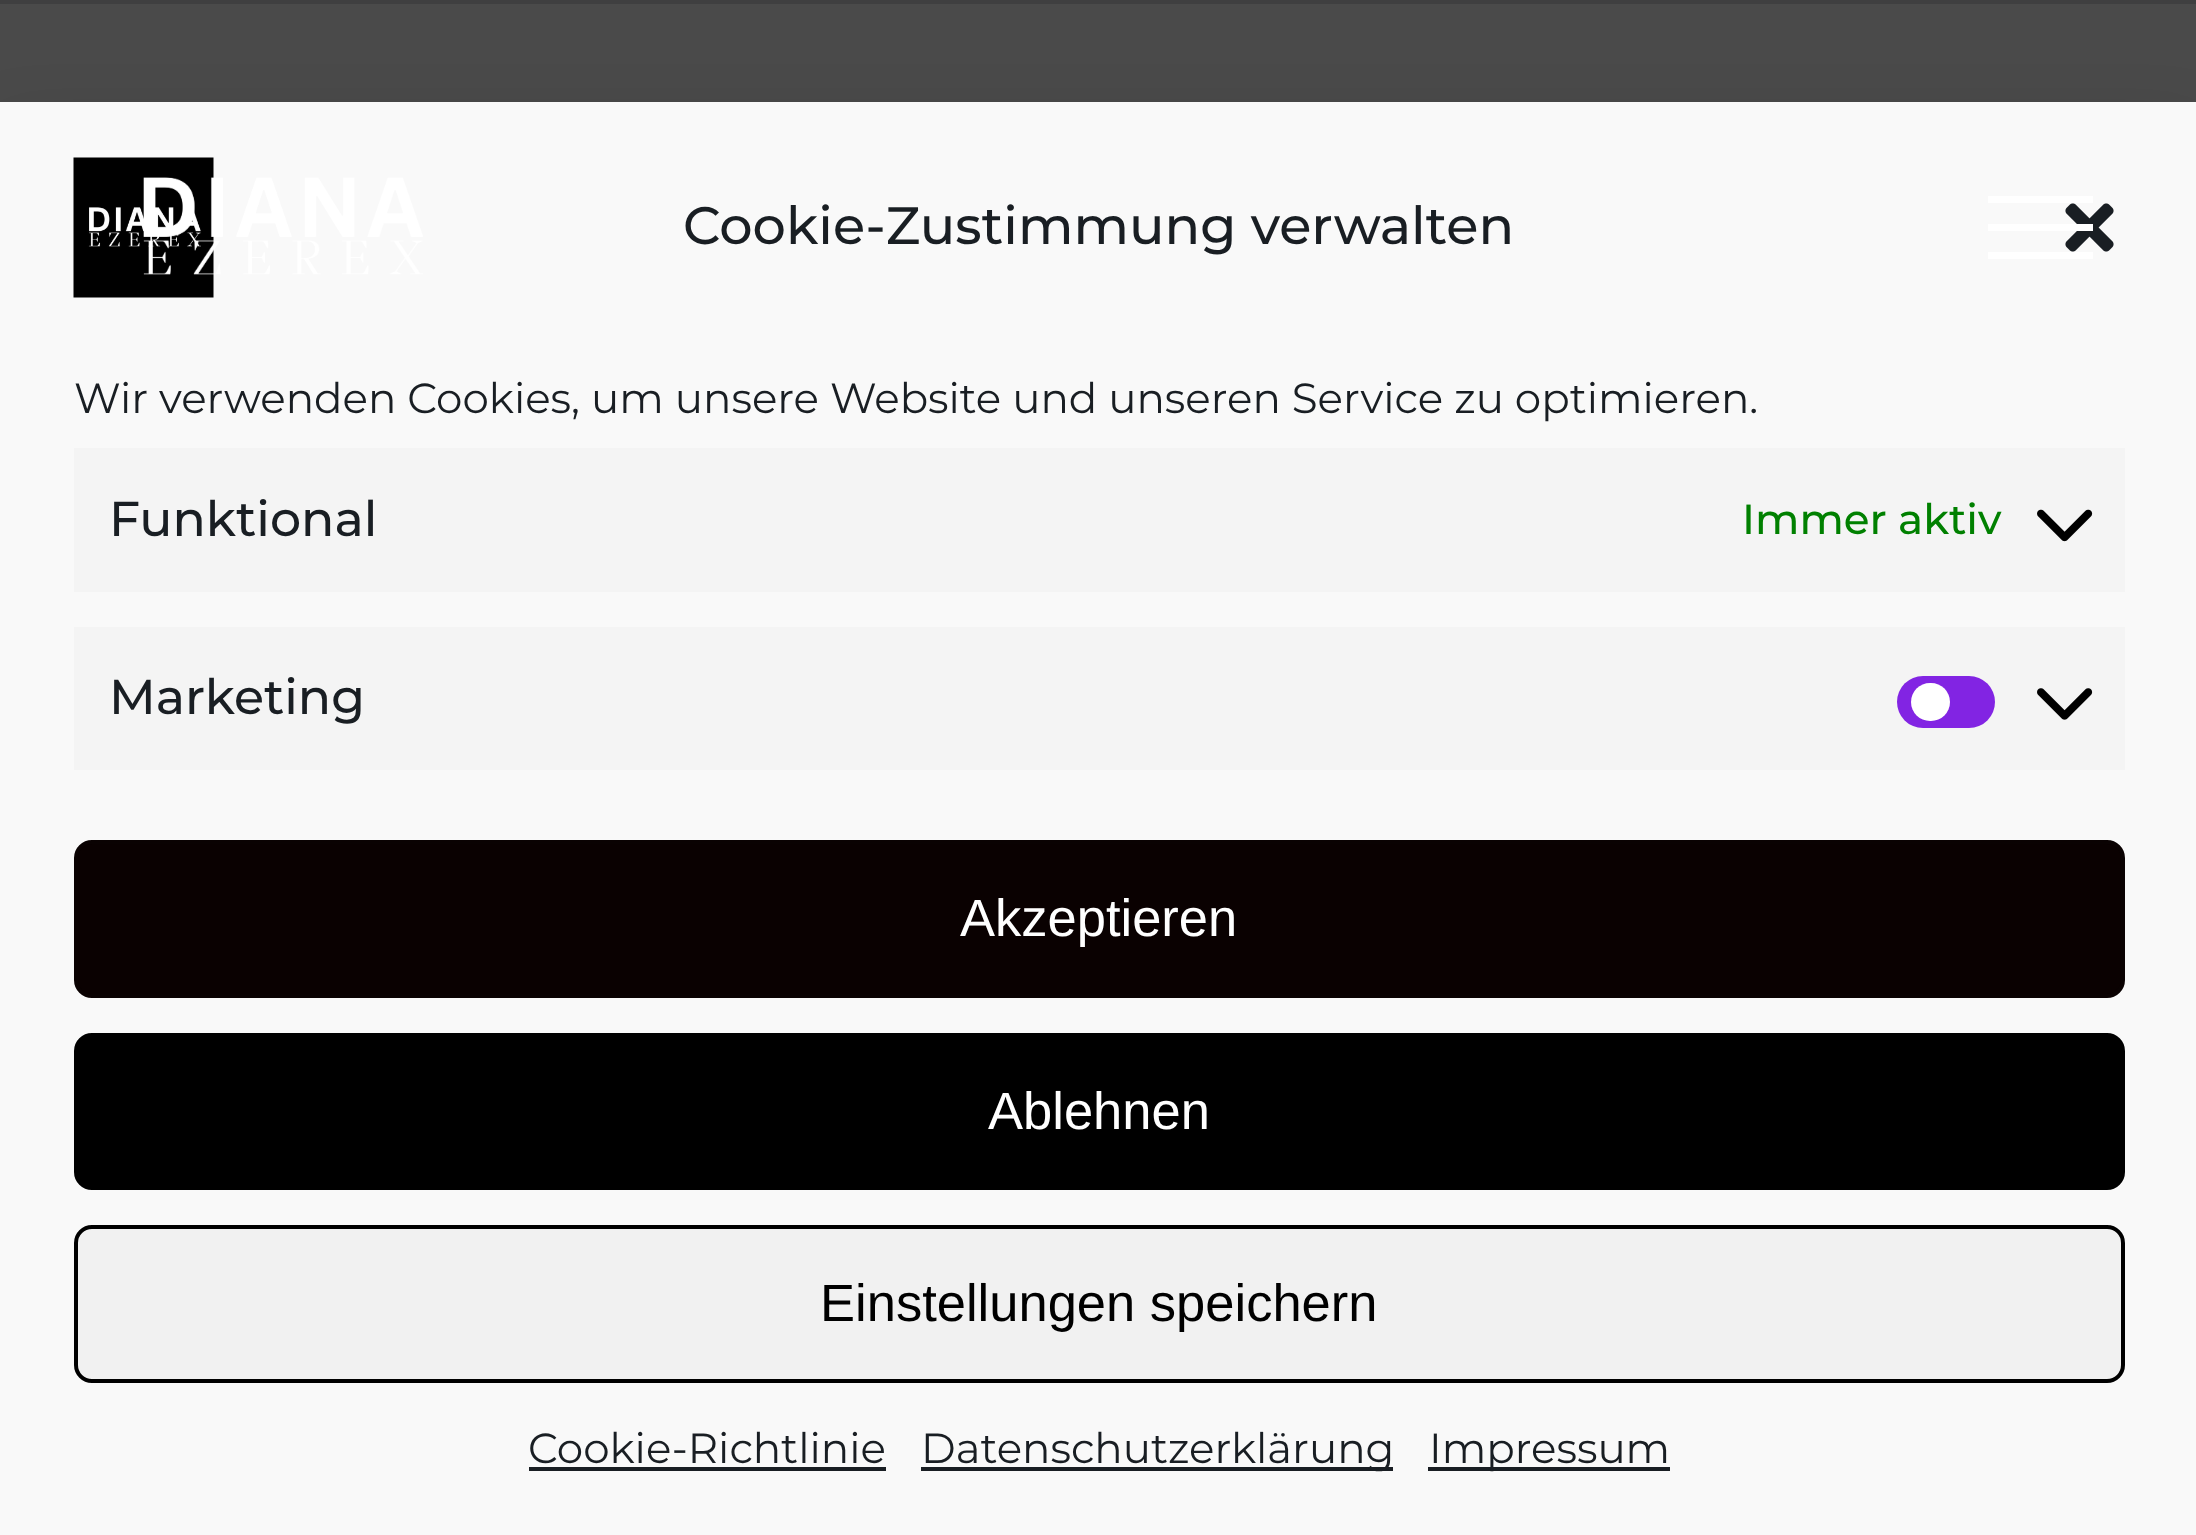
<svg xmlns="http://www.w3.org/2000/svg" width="2196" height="1535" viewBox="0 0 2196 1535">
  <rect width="100%" height="100%" fill="rgb(74,74,74)"/>
  <rect x="0" y="0" width="2196" height="4" fill="rgb(63,63,64)"/>
  <rect x="0" y="137" width="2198" height="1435" fill="rgba(0,0,0,0.19)" filter="blur(35px)"/>
  <rect x="0" y="102" width="2196" height="1433" fill="rgb(249,249,249)"/>
  <image x="73" y="157" width="141" height="141" href="pic2.png"/>
  <image x="143" y="177" width="280" height="98" href="pic1.png"/>
  <rect x="1988" y="196" width="105" height="7" fill="rgb(255,255,255)"/>
  <image x="2065" y="203" width="49" height="49" href="pic3.png"/>
  <rect x="1988" y="224" width="105" height="7" fill="rgb(255,255,255)"/>
  <rect x="1988" y="252" width="105" height="7" fill="rgb(255,255,255)"/>
  <text x="683" y="244" font-family="Montserrat" font-size="52.5" font-weight="500" fill="rgb(25,30,35)">Cookie-Zustimmung verwalten</text>
  <text x="74" y="413" font-family="Montserrat" font-size="42" fill="rgb(25,30,35)">Wir verwenden Cookies, um unsere Website und unseren Service zu optimieren.</text>
  <rect x="74" y="448" width="2051" height="144" fill="rgb(244,244,244)"/>
  <text x="109" y="536" font-family="Montserrat" font-size="49" font-weight="500" fill="rgb(25,30,35)">Funktional</text>
  <text x="1742" y="534" font-family="Montserrat" font-size="42" font-weight="500" fill="rgb(0,128,0)">Immer aktiv</text>
  <image x="2037" y="509" width="56" height="33" href="pic4.png"/>
  <rect x="74" y="627" width="2051" height="143" fill="rgb(244,244,244)"/>
  <text x="109" y="714" font-family="Montserrat" font-size="49" font-weight="500" fill="rgb(25,30,35)">Marketing</text>
  <rect x="1897" y="676" width="98" height="52" rx="26" fill="rgb(130,36,227)"/>
  <rect x="1911" y="683" width="39" height="38" rx="19" fill="rgb(255,255,255)"/>
  <image x="2037" y="688" width="56" height="32" href="pic5.png"/>
  <rect x="76" y="842" width="2047" height="154" rx="16" fill="rgb(10,1,1)" stroke="rgb(10,2,2)" stroke-width="4"/>
  <text x="960" y="936" font-family="Liberation Sans" font-size="52.5" fill="rgb(255,255,255)">Akzeptieren</text>
  <rect x="76" y="1035" width="2047" height="153" rx="16" fill="rgb(0,0,0)" stroke="rgb(0,0,0)" stroke-width="4"/>
  <text x="988" y="1129" font-family="Liberation Sans" font-size="52.5" fill="rgb(255,255,255)">Ablehnen</text>
  <rect x="76" y="1227" width="2047" height="154" rx="16" fill="rgb(241,241,241)" stroke="rgb(0,0,0)" stroke-width="4"/>
  <text x="820" y="1321" font-family="Liberation Sans" font-size="52.5" fill="rgb(0,0,0)">Einstellungen speichern</text>
  <text x="528" y="1463" font-family="Montserrat" font-size="42" fill="rgb(25,30,35)">Cookie-Richtlinie</text>
  <rect x="529" y="1467" width="357" height="4" fill="rgb(25,30,35)"/>
  <rect x="921" y="1467" width="472" height="4" fill="rgb(25,30,35)"/>
  <text x="921" y="1463" font-family="Montserrat" font-size="42" fill="rgb(25,30,35)">Datenschutzerklärung</text>
  <rect x="1428" y="1467" width="242" height="4" fill="rgb(25,30,35)"/>
  <text x="1429" y="1463" font-family="Montserrat" font-size="42" fill="rgb(25,30,35)">Impressum</text>
</svg>
